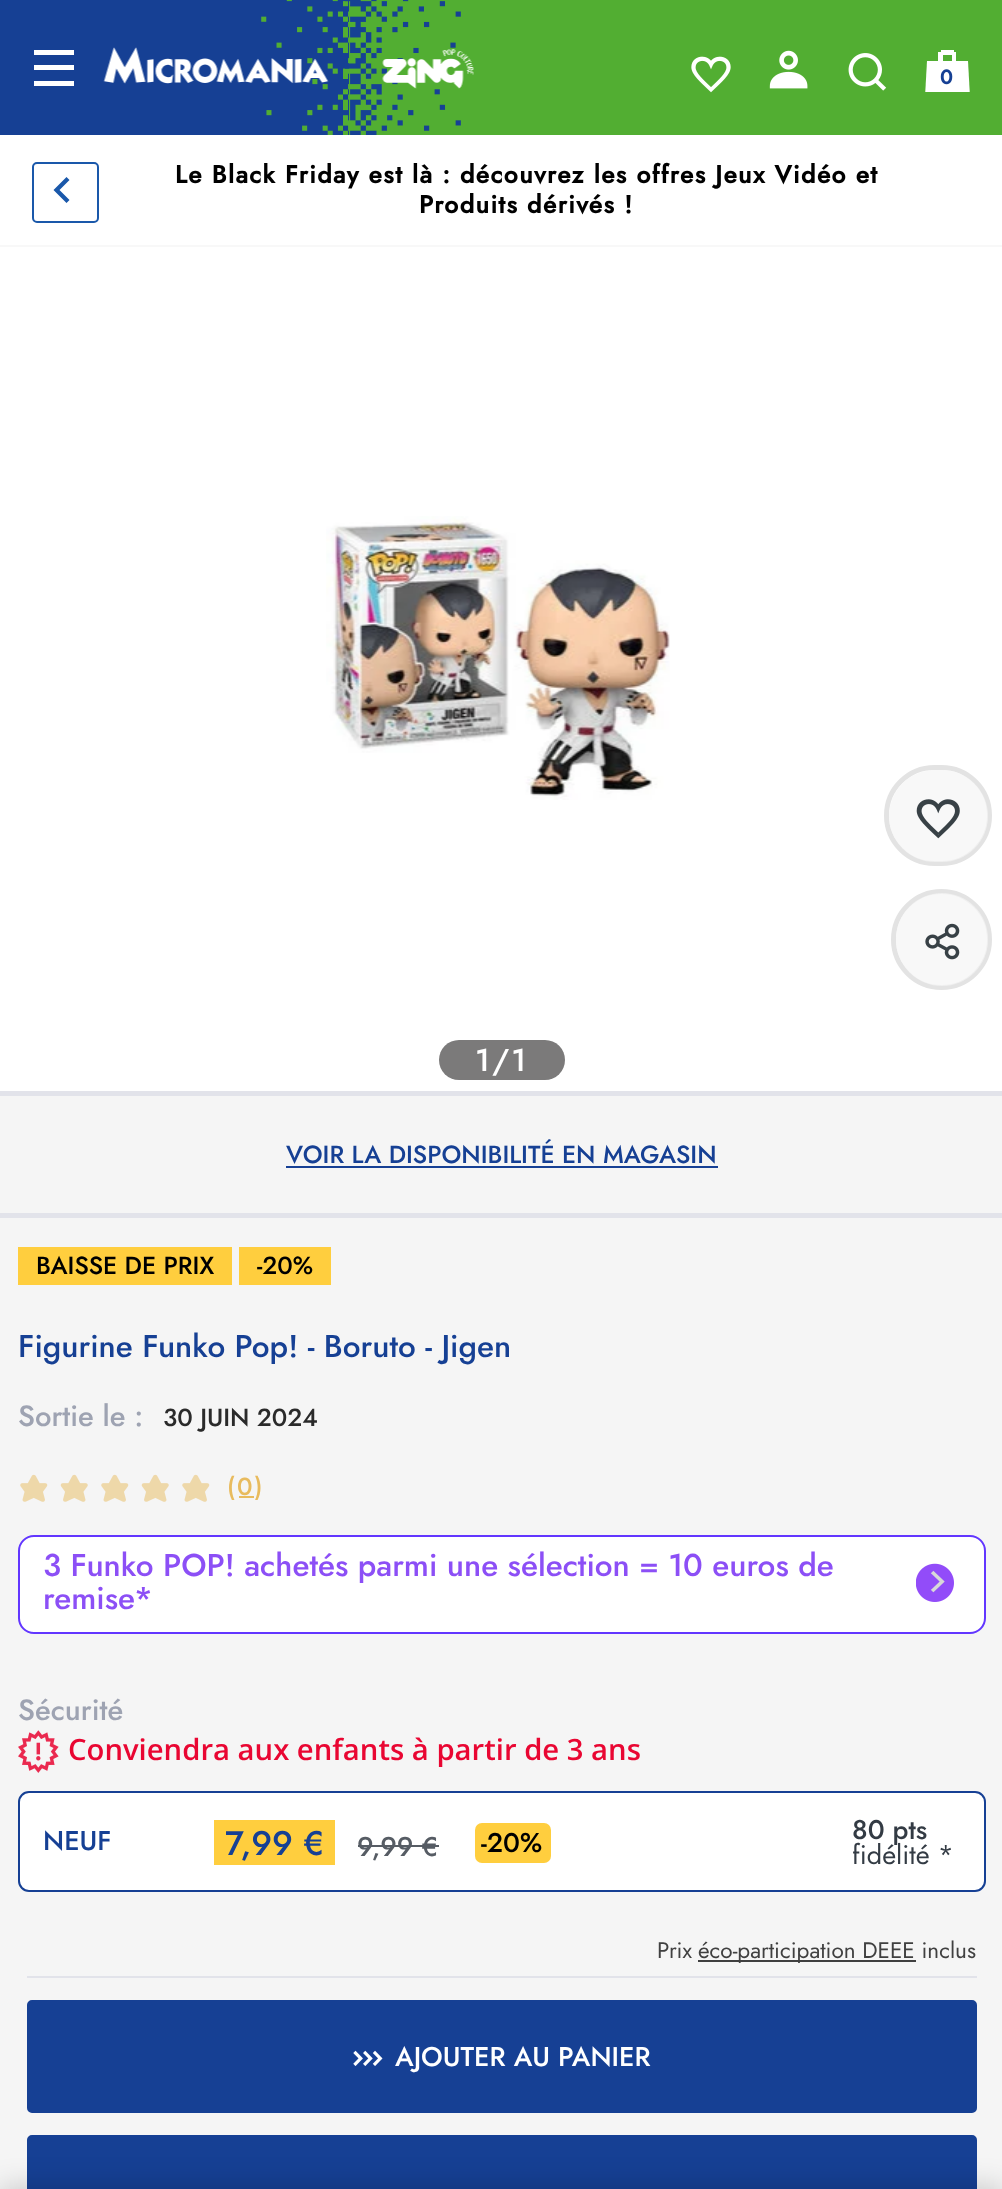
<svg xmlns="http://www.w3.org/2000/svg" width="1002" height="2189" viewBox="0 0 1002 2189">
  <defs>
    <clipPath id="clip1"><rect x="925" y="59" width="45" height="33"/></clipPath>
  </defs>
  <rect width="100%" height="100%" fill="rgb(245,245,245)"/>
  <rect x="0" y="0" width="349" height="135" fill="rgb(22,64,148)"/>
  <rect x="349" y="0" width="653" height="135" fill="rgb(82,174,50)"/>
  <rect x="34" y="50" width="40" height="5" fill="rgb(255,255,255)"/>
  <rect x="34" y="65" width="40" height="5" fill="rgb(255,255,255)"/>
  <rect x="34" y="81" width="40" height="5" fill="rgb(255,255,255)"/>
  <image x="261" y="0" width="200" height="135" href="pic1.png"/>
  <image x="103" y="47" width="371" height="42" href="pic2.png"/>
  <image x="691" y="56" width="40" height="37" href="pic3.png"/>
  <image x="769" y="50" width="39" height="39" href="pic4.png"/>
  <image x="848" y="53" width="39" height="38" href="pic5.png"/>
  <rect x="941" y="50" width="13" height="5" fill="rgb(255,255,255)"/>
  <rect x="952" y="52" width="4" height="9" fill="rgb(255,255,255)"/>
  <rect x="938" y="52" width="5" height="9" fill="rgb(255,255,255)"/>
  <g clip-path="url(#clip1)">
    <path d="M970 97H925L927 61H968Z" fill="rgb(255,255,255)"/>
  </g>
  <text x="940" y="84" font-family="Jost" font-size="20" font-weight="bold" fill="rgb(22,64,148)">0</text>
  <rect x="0" y="135" width="1002" height="956" fill="rgb(255,255,255)"/>
  <rect x="33" y="163" width="65" height="59" rx="4" fill="none" stroke="rgb(26,88,170)" stroke-width="2"/>
  <path d="M66.5 203L69.5 200L59.5 190L69.5 180L66.5 177L53.5 190Z" fill="rgb(26,88,170)"/>
  <rect x="0" y="245" width="1002" height="2" fill="rgb(248,248,248)"/>
  <g font-family="Jost" font-size="24.75" font-weight="bold" letter-spacing="1.35" fill="rgb(0,0,0)">
    <text x="175" y="183">Le Black Friday est là : découvrez les offres Jeux Vidéo et</text>
    <text x="419" y="213">Produits dérivés !</text>
  </g>
  <image x="326" y="516" width="344" height="284" href="pic6.png"/>
  <rect x="439" y="1040" width="126" height="40" rx="20" fill="rgb(123,122,122)"/>
  <text x="475" y="1071" font-family="Jost" font-size="31.5" font-weight="500" letter-spacing="2" fill="rgb(255,255,255)">1/1</text>
  <rect x="886.5" y="767.5" width="103" height="96" rx="48" fill="none" stroke="rgb(227,227,227)" stroke-width="5"/>
  <rect x="889" y="770" width="99" height="92" rx="46" fill="rgba(245,245,245,0.7)"/>
  <image x="916" y="799" width="44" height="40" href="pic7.png"/>
  <circle cx="941.5" cy="939.5" r="48" fill="none" stroke="rgb(227,227,227)" stroke-width="5"/>
  <rect x="896" y="893" width="92" height="93" rx="46" fill="rgba(245,245,245,0.7)"/>
  <image x="925" y="923" width="35" height="37" href="pic8.png"/>
  <rect x="0" y="1091" width="1002" height="5" fill="rgb(226,227,234)"/>
  <rect x="0" y="1213" width="1002" height="5" fill="rgb(226,227,234)"/>
  <text x="286" y="1163" font-family="Jost" font-size="24.75" font-weight="500" fill="rgb(22,64,148)">VOIR LA DISPONIBILITÉ EN MAGASIN</text>
  <rect x="286" y="1166" width="432" height="2" fill="rgb(22,64,148)"/>
  <rect x="18" y="1247" width="214" height="38" fill="rgb(255,206,62)"/>
  <text x="36" y="1274" font-family="Jost" font-size="24.75" font-weight="500" fill="rgb(0,0,0)">BAISSE DE PRIX</text>
  <rect x="239" y="1247" width="92" height="38" fill="rgb(255,206,62)"/>
  <text x="257" y="1274" font-family="Jost" font-size="24.75" font-weight="500" fill="rgb(0,0,0)">-20%</text>
  <text x="18" y="1357" font-family="Jost" font-size="31.5" font-weight="500" fill="rgb(22,64,148)">Figurine Funko Pop! - Boruto - Jigen</text>
  <text x="18" y="1426" font-family="Jost" font-size="29.25" font-weight="500" fill="rgb(158,163,178)">Sortie le :</text>
  <text x="163" y="1426" font-family="Jost" font-size="24.75" font-weight="500" fill="rgb(42,42,42)">30 JUIN 2024</text>
  <image x="20" y="1474" width="28" height="28" href="pic9.png"/>
  <image x="60" y="1474" width="28" height="28" href="pic10.png"/>
  <image x="101" y="1474" width="28" height="28" href="pic9.png"/>
  <image x="141" y="1474" width="28" height="28" href="pic10.png"/>
  <image x="182" y="1474" width="28" height="28" href="pic9.png"/>
  <text x="227" y="1495" font-family="Jost" font-size="24.75" font-weight="500" letter-spacing="2" fill="rgb(232,187,94)">(0)</text>
  <rect x="239" y="1496" width="15" height="2" fill="rgb(232,187,94)"/>
  <rect x="19" y="1536" width="966" height="97" rx="15" fill="rgb(255,255,255)" stroke="rgb(98,54,255)" stroke-width="2"/>
  <g font-family="Jost" font-size="31.5" font-weight="500" fill="rgb(140,79,246)">
    <text>
      <tspan x="43" y="1576">3 Funko POP! achetés parmi une sélection = 10 euros de</tspan>
      <tspan x="43" y="1609">remise*</tspan>
    </text>
  </g>
  <image x="916" y="1563" width="38" height="39" href="pic11.png"/>
  <text x="18" y="1720" font-family="Jost" font-size="29.25" font-weight="500" fill="rgb(158,163,178)">Sécurité</text>
  <image x="18" y="1730" width="41" height="43" href="pic12.png"/>
  <text x="68" y="1760" font-family="Open Sans" font-size="29.25" font-weight="600" fill="rgb(233,6,50)">Conviendra aux enfants à partir de 3 ans</text>
  <rect x="19" y="1792" width="966" height="99" rx="10" fill="rgb(255,255,255)" stroke="rgb(22,64,148)" stroke-width="2"/>
  <text x="43" y="1850" font-family="Jost" font-size="27" font-weight="500" fill="rgb(22,64,148)">NEUF</text>
  <rect x="214" y="1820" width="121" height="45" fill="rgb(255,206,62)"/>
  <text x="225" y="1855" font-family="Jost" font-size="34" font-weight="500" fill="rgb(22,64,148)">7,99 €</text>
  <text x="357" y="1856" font-family="Jost" font-size="27" font-weight="500" fill="rgb(86,92,100)">9,99 €</text>
  <rect x="358" y="1845" width="81" height="2" fill="rgb(86,92,100)"/>
  <rect x="475" y="1823" width="76" height="40" rx="7" fill="rgb(255,206,62)"/>
  <text x="481" y="1852" font-family="Jost" font-size="27" font-weight="500" fill="rgb(0,0,0)">-20%</text>
  <text x="852" y="1839" font-family="Jost" font-size="27" font-weight="500" fill="rgb(51,59,68)">80 pts</text>
  <text x="852" y="1864" font-family="Jost" font-size="27" fill="rgb(51,59,68)">fidélité *</text>
  <rect x="27" y="1976" width="950" height="2" fill="rgb(226,227,234)"/>
  <text x="657" y="1958" font-family="Jost" font-size="22.5" fill="rgb(64,64,64)">Prix</text>
  <rect x="698" y="1960" width="218" height="2" fill="rgb(64,64,64)"/>
  <text x="698" y="1958" font-family="Jost" font-size="22.5" fill="rgb(64,64,64)">éco-participation DEEE inclus</text>
  <rect x="28" y="2001" width="948" height="111" rx="4" fill="rgb(22,64,148)" stroke="rgb(22,64,148)" stroke-width="2"/>
  <image x="353" y="2050" width="30" height="16" href="pic13.png"/>
  <text x="395" y="2066" font-family="Jost" font-size="27" font-weight="500" fill="rgb(255,255,255)">AJOUTER AU PANIER</text>
  <rect x="28" y="2136" width="948" height="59" rx="4" fill="rgb(22,64,148)" stroke="rgb(22,64,148)" stroke-width="2"/>
  <rect x="0" y="2187" width="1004" height="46" fill="rgba(0,0,0,0.18)" filter="blur(14.5px)"/>
</svg>
